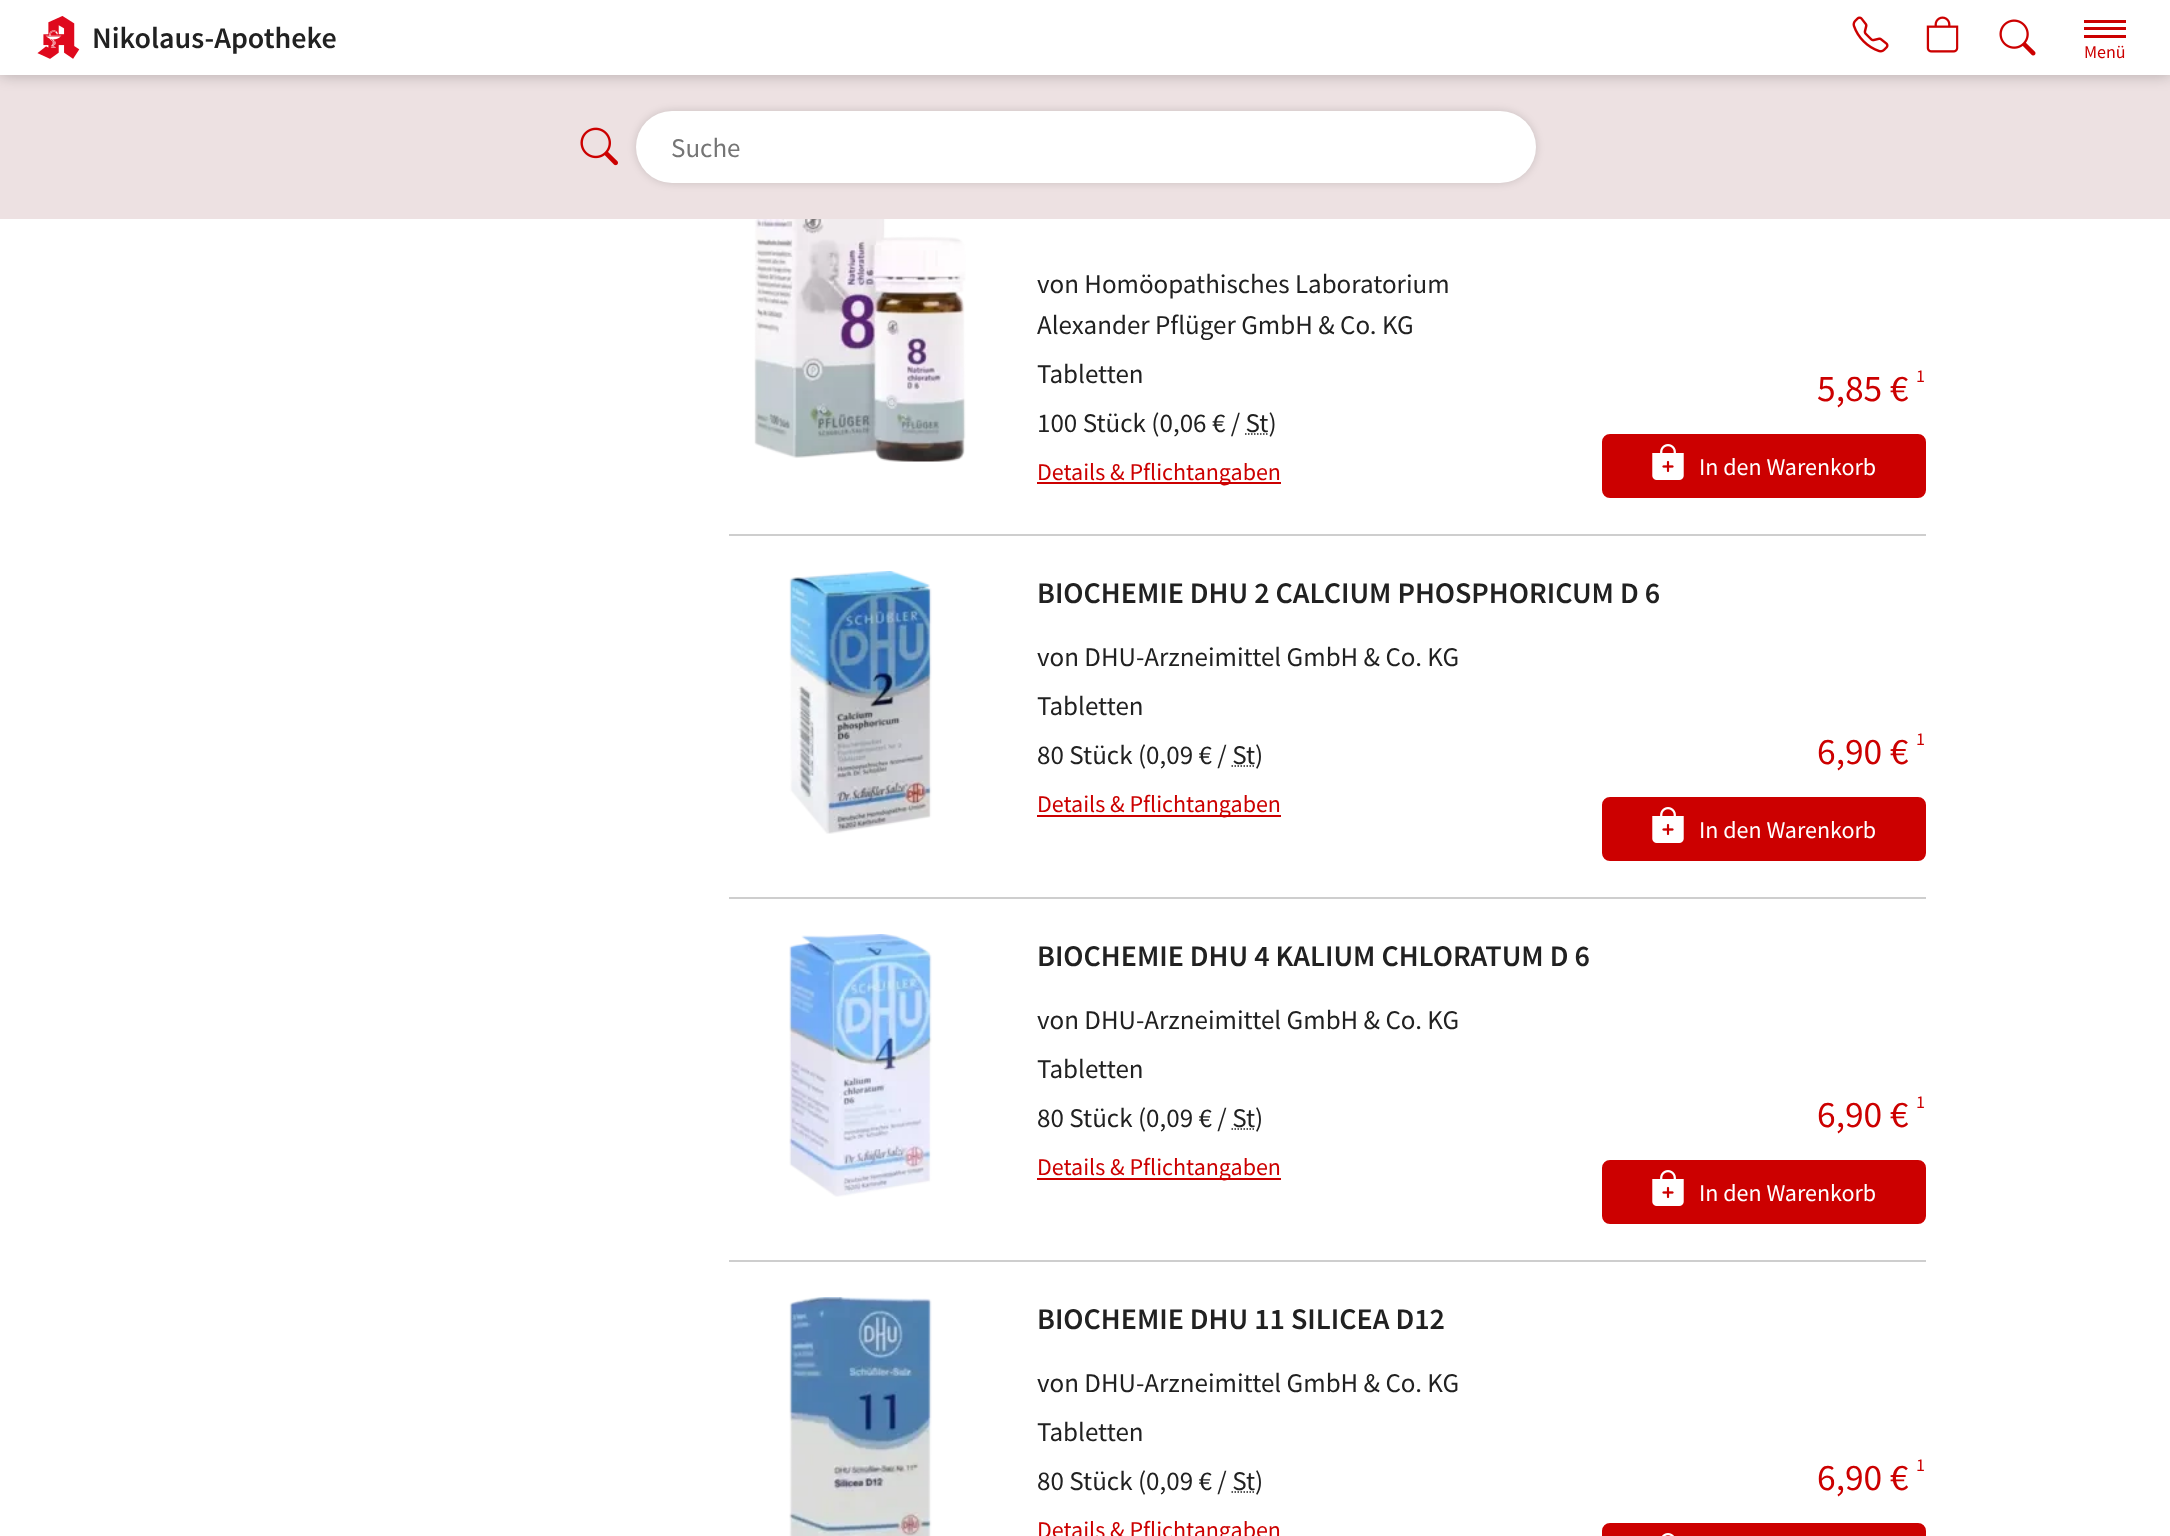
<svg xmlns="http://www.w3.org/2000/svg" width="2170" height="1536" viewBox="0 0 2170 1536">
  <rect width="100%" height="100%" fill="rgb(255,255,255)"/>
  <rect x="0" y="75" width="2170" height="144" fill="rgb(237,225,226)"/>
  <rect x="0" y="0" width="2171" height="75" fill="rgba(0,0,0,0.25)" filter="blur(7.5px)"/>
  <rect x="0" y="0" width="2170" height="75" fill="rgb(255,255,255)"/>
  <image x="37" y="16" width="43" height="43" href="pic1.png"/>
  <text x="92" y="48" font-family="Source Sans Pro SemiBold" font-size="30" font-weight="600" fill="rgb(33,33,33)">Nikolaus-Apotheke</text>
  <image x="1852" y="16" width="37" height="37" href="pic2.png"/>
  <image x="1926" y="16" width="33" height="37" href="pic3.png"/>
  <image x="1999" y="19" width="37" height="37" href="pic4.png"/>
  <rect x="2084" y="27" width="42" height="3" fill="rgb(204,0,0)"/>
  <rect x="2084" y="20" width="42" height="3" fill="rgb(204,0,0)"/>
  <rect x="2084" y="35" width="42" height="3" fill="rgb(204,0,0)"/>
  <text x="2084" y="58" font-family="Source Sans Pro" font-size="18" fill="rgb(204,0,0)">Menü</text>
  <image x="580" y="127" width="38" height="39" href="pic5.png"/>
  <rect x="636" y="111" width="900" height="72" rx="36" fill="rgba(0,0,0,0.15)" filter="blur(4.5px)"/>
  <rect x="636" y="111" width="900" height="72" rx="36" fill="rgb(255,255,255)"/>
  <text x="671" y="157" font-family="Source Sans Pro" font-size="27" fill="rgb(117,117,117)">Suche</text>
  <rect x="729" y="534" width="1197" height="2" fill="rgb(206,206,206)"/>
  <image x="754" y="219" width="212" height="243" href="pic6.png"/>
  <g font-family="Source Sans Pro" font-size="27" fill="rgb(33,33,33)">
    <text>
      <tspan x="1037" y="293">von Homöopathisches Laboratorium</tspan>
      <tspan x="1037" y="334">Alexander Pflüger GmbH &amp; Co. KG</tspan>
      <tspan x="1037" y="383">Tabletten</tspan>
      <tspan x="1037" y="432">100 Stück (0,06 € / St)</tspan>
    </text>
  </g>
  <path d="M1245 434H1268" fill="none" stroke="rgb(33,33,33)" stroke-width="1.5" stroke-dasharray="1.5 1.5"/>
  <rect x="1037" y="482" width="244" height="2" fill="rgb(204,0,0)"/>
  <text x="1037" y="480" font-family="Source Sans Pro" font-size="24" fill="rgb(204,0,0)">Details &amp; Pflichtangaben</text>
  <text x="1817" y="401" font-family="Source Sans Pro" font-size="37.5" fill="rgb(204,0,0)">5,85 €</text>
  <text x="1916" y="382" font-family="Source Sans Pro" font-size="18" fill="rgb(204,0,0)">1</text>
  <rect x="1603" y="435" width="322" height="62" rx="7" fill="rgb(204,0,0)" stroke="rgb(204,0,0)" stroke-width="2"/>
  <image x="1652" y="444" width="32" height="36" href="pic7.png"/>
  <text x="1699" y="475" font-family="Source Sans Pro" font-size="24" fill="rgb(255,255,255)">In den Warenkorb</text>
  <rect x="729" y="897" width="1197" height="2" fill="rgb(206,206,206)"/>
  <text x="1037" y="603" font-family="Source Sans Pro SemiBold" font-size="30" font-weight="600" fill="rgb(33,33,33)">BIOCHEMIE DHU 2 CALCIUM PHOSPHORICUM D 6</text>
  <image x="789" y="571" width="143" height="263" href="pic8.png"/>
  <g font-family="Source Sans Pro" font-size="27" fill="rgb(33,33,33)">
    <text>
      <tspan x="1037" y="666">von DHU-Arzneimittel GmbH &amp; Co. KG</tspan>
      <tspan x="1037" y="715">Tabletten</tspan>
      <tspan x="1037" y="764">80 Stück (0,09 € / St)</tspan>
    </text>
  </g>
  <path d="M1231.5 766H1254.5" fill="none" stroke="rgb(33,33,33)" stroke-width="1.5" stroke-dasharray="1.5 1.5"/>
  <rect x="1037" y="815" width="244" height="2" fill="rgb(204,0,0)"/>
  <text x="1037" y="812" font-family="Source Sans Pro" font-size="24" fill="rgb(204,0,0)">Details &amp; Pflichtangaben</text>
  <text x="1817" y="764" font-family="Source Sans Pro" font-size="37.5" fill="rgb(204,0,0)">6,90 €</text>
  <text x="1916" y="745" font-family="Source Sans Pro" font-size="18" fill="rgb(204,0,0)">1</text>
  <rect x="1603" y="798" width="322" height="62" rx="7" fill="rgb(204,0,0)" stroke="rgb(204,0,0)" stroke-width="2"/>
  <image x="1652" y="807" width="32" height="36" href="pic7.png"/>
  <text x="1699" y="838" font-family="Source Sans Pro" font-size="24" fill="rgb(255,255,255)">In den Warenkorb</text>
  <rect x="729" y="1260" width="1197" height="2" fill="rgb(206,206,206)"/>
  <text x="1037" y="966" font-family="Source Sans Pro SemiBold" font-size="30" font-weight="600" fill="rgb(33,33,33)">BIOCHEMIE DHU 4 KALIUM CHLORATUM D 6</text>
  <image x="789" y="934" width="143" height="263" href="pic9.png"/>
  <g font-family="Source Sans Pro" font-size="27" fill="rgb(33,33,33)">
    <text>
      <tspan x="1037" y="1029">von DHU-Arzneimittel GmbH &amp; Co. KG</tspan>
      <tspan x="1037" y="1078">Tabletten</tspan>
      <tspan x="1037" y="1127">80 Stück (0,09 € / St)</tspan>
    </text>
  </g>
  <path d="M1231.5 1129H1254.5" fill="none" stroke="rgb(33,33,33)" stroke-width="1.5" stroke-dasharray="1.5 1.5"/>
  <rect x="1037" y="1178" width="244" height="2" fill="rgb(204,0,0)"/>
  <text x="1037" y="1175" font-family="Source Sans Pro" font-size="24" fill="rgb(204,0,0)">Details &amp; Pflichtangaben</text>
  <text x="1817" y="1127" font-family="Source Sans Pro" font-size="37.5" fill="rgb(204,0,0)">6,90 €</text>
  <text x="1916" y="1108" font-family="Source Sans Pro" font-size="18" fill="rgb(204,0,0)">1</text>
  <rect x="1603" y="1161" width="322" height="62" rx="7" fill="rgb(204,0,0)" stroke="rgb(204,0,0)" stroke-width="2"/>
  <image x="1652" y="1170" width="32" height="36" href="pic7.png"/>
  <text x="1699" y="1201" font-family="Source Sans Pro" font-size="24" fill="rgb(255,255,255)">In den Warenkorb</text>
  <text x="1037" y="1329" font-family="Source Sans Pro SemiBold" font-size="30" font-weight="600" fill="rgb(33,33,33)">BIOCHEMIE DHU 11 SILICEA D12</text>
  <image x="789" y="1297" width="143" height="239" href="pic10.png"/>
  <g font-family="Source Sans Pro" font-size="27" fill="rgb(33,33,33)">
    <text>
      <tspan x="1037" y="1392">von DHU-Arzneimittel GmbH &amp; Co. KG</tspan>
      <tspan x="1037" y="1441">Tabletten</tspan>
      <tspan x="1037" y="1490">80 Stück (0,09 € / St)</tspan>
    </text>
  </g>
  <path d="M1231.5 1492H1254.5" fill="none" stroke="rgb(33,33,33)" stroke-width="1.5" stroke-dasharray="1.5 1.5"/>
  <text x="1037" y="1538" font-family="Source Sans Pro" font-size="24" fill="rgb(204,0,0)">Details &amp; Pflichtangaben</text>
  <text x="1817" y="1490" font-family="Source Sans Pro" font-size="37.5" fill="rgb(204,0,0)">6,90 €</text>
  <text x="1916" y="1471" font-family="Source Sans Pro" font-size="18" fill="rgb(204,0,0)">1</text>
  <rect x="1603" y="1524" width="322" height="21" rx="7" fill="rgb(204,0,0)" stroke="rgb(204,0,0)" stroke-width="2"/>
  <image x="1662" y="1533" width="12" height="3" href="pic11.png"/>
</svg>
